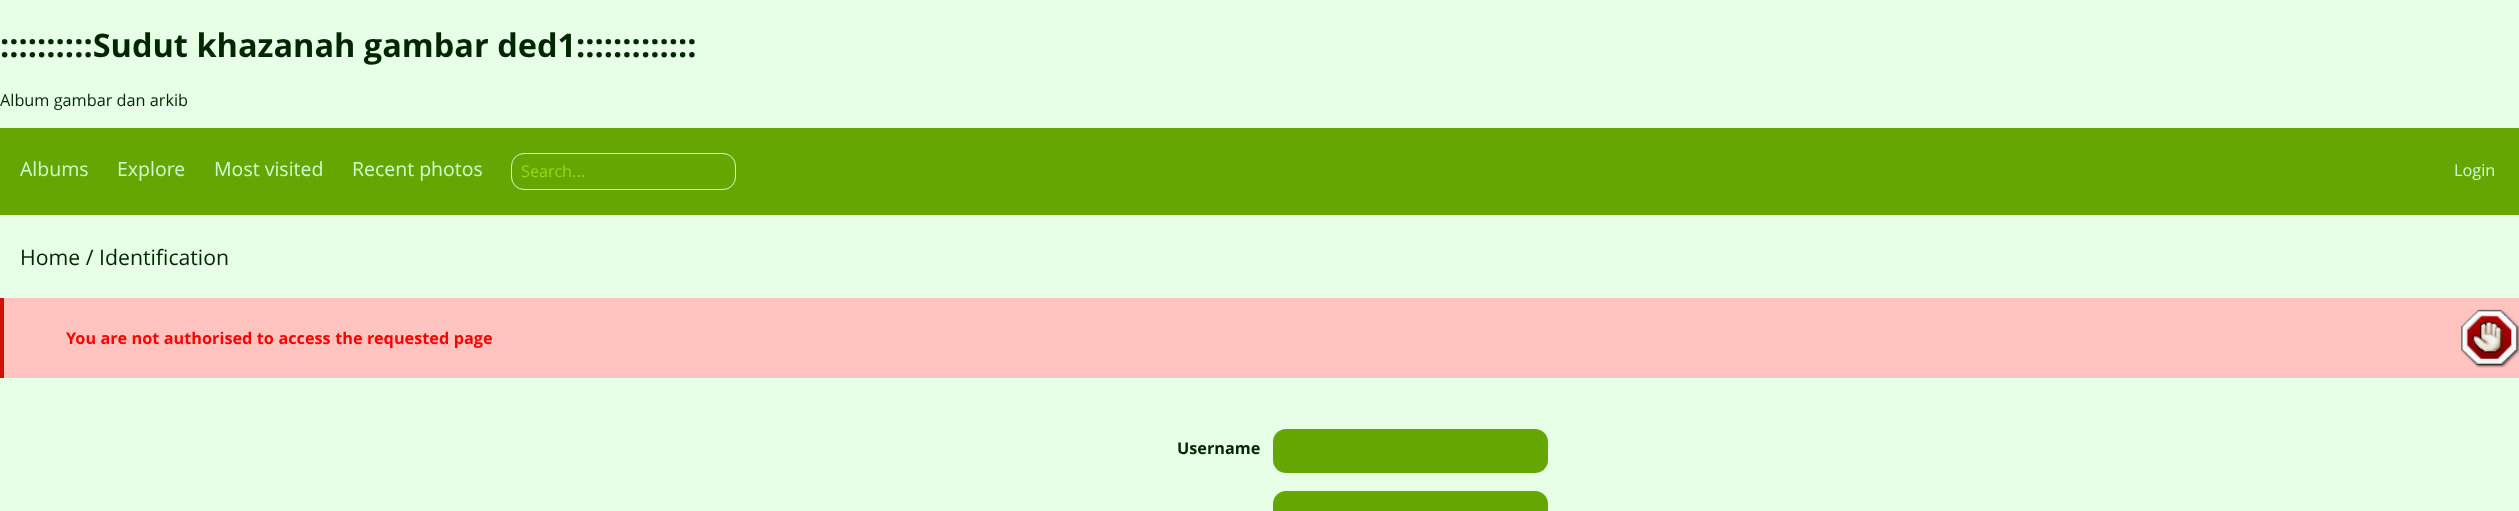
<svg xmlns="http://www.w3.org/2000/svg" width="2519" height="511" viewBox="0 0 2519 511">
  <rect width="100%" height="100%" fill="rgb(231,255,231)"/>
  <text x="0" y="57" font-family="Open Sans" font-size="32.5" font-weight="bold" fill="rgb(2,38,1)">::::::::::Sudut khazanah gambar ded1:::::::::::::</text>
  <text x="0" y="106" font-family="Open Sans" font-size="16.25" fill="rgb(2,38,1)">Album gambar dan arkib</text>
  <rect x="0" y="128" width="2519" height="87" fill="rgb(101,166,3)"/>
  <g font-family="Open Sans" font-size="19.5" fill="rgb(206,255,206)">
    <text x="20" y="176">Albums</text>
    <text x="117" y="176">Explore</text>
    <text x="214" y="176">Most visited</text>
    <text x="352" y="176">Recent photos</text>
  </g>
  <rect x="511.5" y="153.5" width="224" height="36" rx="12.5" fill="none" stroke="rgb(206,255,206)"/>
  <text x="521" y="177" font-family="Open Sans" font-size="16.25" fill="rgb(152,217,13)">Search...</text>
  <text x="2454" y="176" font-family="Open Sans" font-size="16.25" fill="rgb(206,255,206)">Login</text>
  <text x="20" y="265" font-family="Open Sans" font-size="21.25" fill="rgb(2,38,1)">Home / Identification</text>
  <rect x="4" y="298" width="2515" height="80" fill="rgb(255,196,191)"/>
  <image x="2461" y="309" width="58" height="59" href="pic1.png"/>
  <rect x="0" y="298" width="4" height="80" fill="rgb(211,17,0)"/>
  <text x="66" y="344" word-spacing="0.25" font-family="Open Sans" font-size="16.25" font-weight="bold" fill="rgb(255,0,0)">You are not authorised to access the requested page</text>
  <text x="1177" y="454" font-family="Open Sans" font-size="16.25" font-weight="bold" fill="rgb(2,38,1)">Username</text>
  <rect x="1273" y="429" width="275" height="44" rx="13" fill="rgb(101,166,3)"/>
  <rect x="1273" y="491" width="275" height="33" rx="13" fill="rgb(101,166,3)"/>
</svg>
